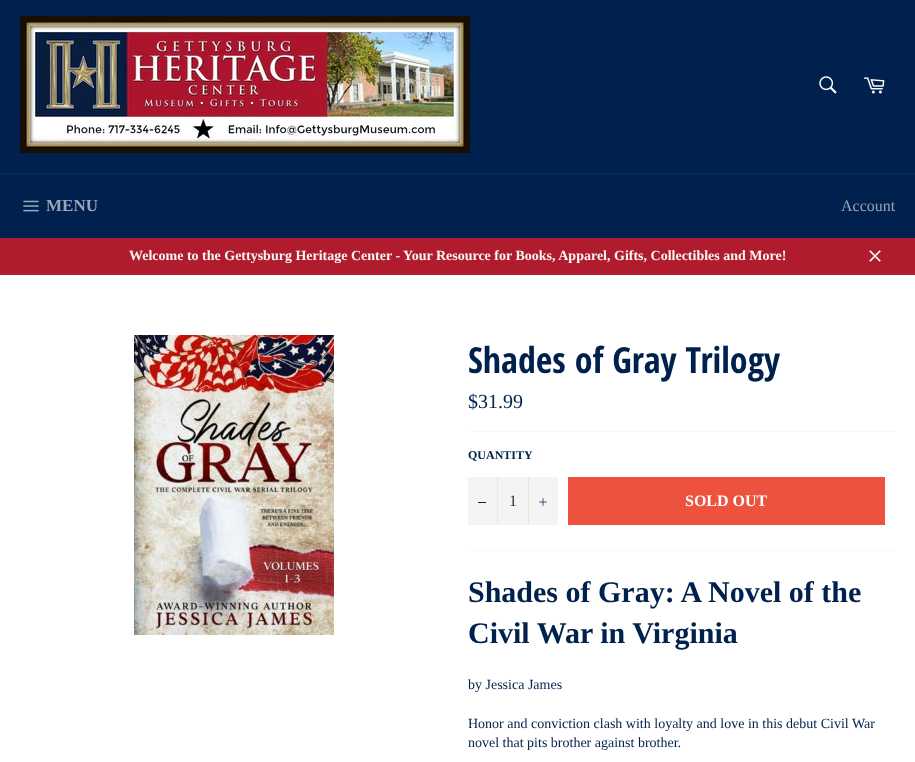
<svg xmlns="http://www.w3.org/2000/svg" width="915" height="762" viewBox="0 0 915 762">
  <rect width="100%" height="100%" fill="rgb(0,33,77)"/>
  <image x="20" y="16" width="450" height="137" href="pic1.png"/>
  <image x="819" y="76" width="18" height="18" href="pic2.png"/>
  <image x="863" y="77" width="22" height="17" href="pic3.png"/>
  <rect x="0" y="173" width="915" height="1" fill="rgb(0,44,103)"/>
  <image x="23" y="200" width="16" height="12" href="pic4.png"/>
  <text x="46" y="211" font-family="Liberation Serif" font-size="17" font-weight="bold" fill="rgb(153,166,184)">MENU</text>
  <text x="841" y="211" font-family="Liberation Serif" font-size="16" fill="rgb(153,166,184)">Account</text>
  <rect x="0" y="238" width="915" height="37" fill="rgb(176,28,46)"/>
  <text x="129" y="260" font-family="Liberation Serif" font-size="14" font-weight="bold" fill="rgb(249,246,246)">Welcome to the Gettysburg Heritage Center - Your Resource for Books, Apparel, Gifts, Collectibles and More!</text>
  <image x="869" y="250" width="12" height="12" href="pic5.png"/>
  <rect x="0" y="275" width="915" height="487" fill="rgb(255,255,255)"/>
  <image x="134" y="335" width="200" height="300" href="pic6.png"/>
  <text x="468" y="373" font-family="Open Sans Condensed" font-size="36" font-weight="bold" fill="rgb(0,33,77)">Shades of Gray Trilogy</text>
  <text x="468" y="408" font-family="Liberation Serif" font-size="20" fill="rgb(0,33,77)">$31.99</text>
  <rect x="468" y="431" width="427" height="1" fill="rgb(247,247,247)"/>
  <text x="468" y="459" font-family="Liberation Serif" font-size="12" font-weight="bold" fill="rgb(0,33,77)">QUANTITY</text>
  <rect x="468" y="477" width="90" height="48" fill="rgb(244,244,244)"/>
  <rect x="497" y="477" width="1" height="48" fill="rgb(231,231,231)"/>
  <rect x="478" y="502" width="8" height="1" fill="rgb(0,33,77)"/>
  <text x="509" y="506" font-family="Liberation Serif" font-size="16" fill="rgb(51,51,51)">1</text>
  <rect x="528" y="477" width="1" height="48" fill="rgb(231,231,231)"/>
  <image x="539" y="498" width="8" height="8" href="pic7.png"/>
  <rect x="568" y="477" width="317" height="48" fill="rgb(236,82,62)"/>
  <text x="685" y="506" font-family="Liberation Serif" font-size="16" font-weight="bold" fill="rgb(255,255,255)">SOLD OUT</text>
  <rect x="468" y="550" width="427" height="1" fill="rgb(247,247,247)"/>
  <g font-family="Liberation Serif" font-size="30" font-weight="bold" fill="rgb(0,33,77)">
    <text>
      <tspan x="468" y="602">Shades of Gray: A Novel of the</tspan>
      <tspan x="468" y="643">Civil War in Virginia</tspan>
    </text>
  </g>
  <g font-family="Liberation Serif" font-size="14" fill="rgb(0,33,77)">
    <text x="468" y="689">by Jessica James</text>
    <text>
      <tspan x="468" y="728">Honor and conviction clash with loyalty and love in this debut Civil War</tspan>
      <tspan x="468" y="747">novel that pits brother against brother.</tspan>
    </text>
  </g>
</svg>
